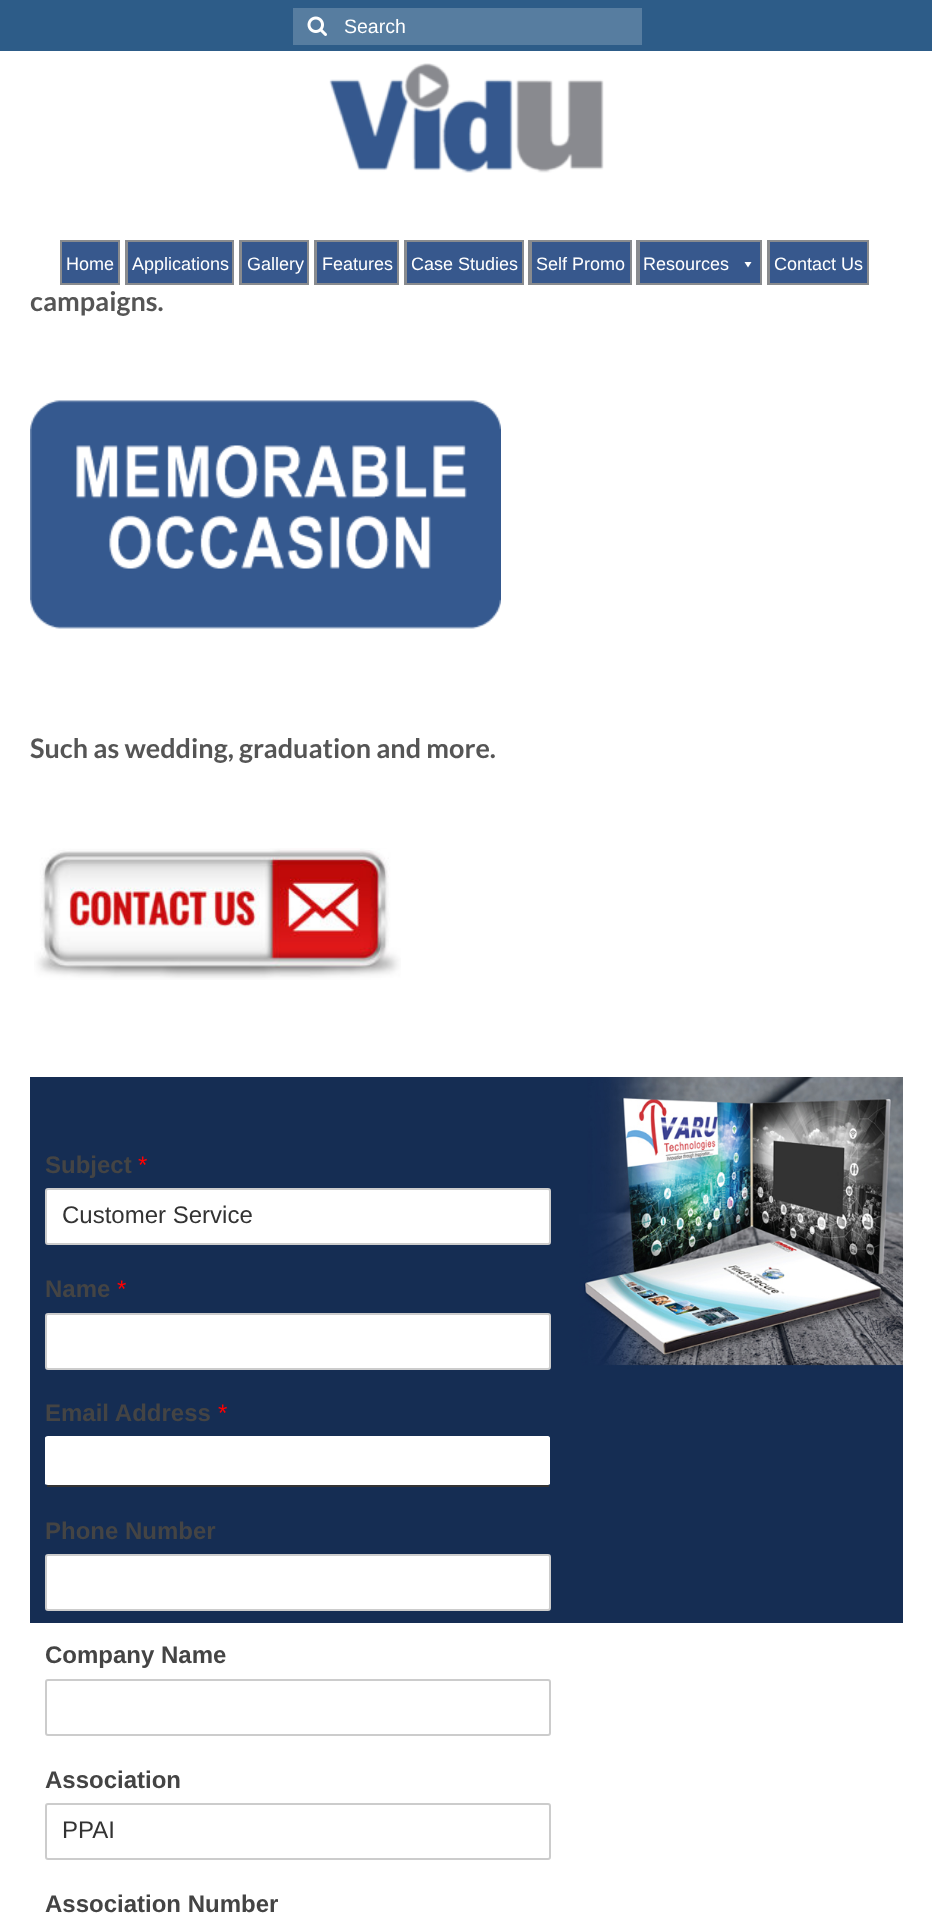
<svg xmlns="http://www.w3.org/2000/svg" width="932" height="1918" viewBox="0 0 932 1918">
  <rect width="100%" height="100%" fill="rgb(255,255,255)"/>
  <rect x="0" y="0" width="932" height="51" fill="rgb(45,92,136)"/>
  <rect x="293" y="8" width="349" height="37" fill="rgb(87,125,160)"/>
  <image x="307" y="16" width="20" height="20" href="pic1.png"/>
  <text x="344" y="33" font-family="Liberation Sans" font-size="19.5" fill="rgb(255,255,255)">Search</text>
  <image x="329" y="63" width="275" height="110" href="pic2.png"/>
  <rect x="61" y="241" width="58" height="43" fill="rgb(55,88,141)" stroke="rgb(137,139,142)" stroke-width="2"/>
  <text x="66" y="270" font-family="Liberation Sans" font-size="18" fill="rgb(255,255,255)">Home</text>
  <rect x="125" y="240" width="1" height="45" fill="rgb(137,139,142)"/>
  <rect x="127" y="241" width="106" height="43" fill="rgb(55,88,141)" stroke="rgb(137,139,142)" stroke-width="2"/>
  <text x="132" y="270" font-family="Liberation Sans" font-size="18" fill="rgb(255,255,255)">Applications</text>
  <rect x="239" y="240" width="1" height="45" fill="rgb(137,139,142)"/>
  <rect x="241" y="241" width="67" height="43" fill="rgb(55,88,141)" stroke="rgb(137,139,142)" stroke-width="2"/>
  <text x="247" y="270" font-family="Liberation Sans" font-size="18" fill="rgb(255,255,255)">Gallery</text>
  <rect x="314" y="240" width="1" height="45" fill="rgb(137,139,142)"/>
  <rect x="316" y="241" width="82" height="43" fill="rgb(55,88,141)" stroke="rgb(137,139,142)" stroke-width="2"/>
  <text x="322" y="270" font-family="Liberation Sans" font-size="18" fill="rgb(255,255,255)">Features</text>
  <rect x="404" y="240" width="1" height="45" fill="rgb(137,139,142)"/>
  <rect x="406" y="241" width="117" height="43" fill="rgb(55,88,141)" stroke="rgb(137,139,142)" stroke-width="2"/>
  <text x="411" y="270" font-family="Liberation Sans" font-size="18" fill="rgb(255,255,255)">Case Studies</text>
  <rect x="528" y="240" width="2" height="45" fill="rgb(137,139,142)"/>
  <rect x="531" y="241" width="100" height="43" fill="rgb(55,88,141)" stroke="rgb(137,139,142)" stroke-width="2"/>
  <text x="536" y="270" font-family="Liberation Sans" font-size="18" fill="rgb(255,255,255)">Self Promo</text>
  <rect x="636" y="240" width="2" height="45" fill="rgb(137,139,142)"/>
  <rect x="639" y="241" width="122" height="43" fill="rgb(55,88,141)" stroke="rgb(137,139,142)" stroke-width="2"/>
  <text x="643" y="270" font-family="Liberation Sans" font-size="18" fill="rgb(255,255,255)">Resources</text>
  <path d="M751.5 262L748 267.5L744.5 262Z" fill="rgb(255,255,255)"/>
  <rect x="767" y="240" width="1" height="45" fill="rgb(137,139,142)"/>
  <rect x="769" y="241" width="99" height="43" fill="rgb(55,88,141)" stroke="rgb(137,139,142)" stroke-width="2"/>
  <text x="774" y="270" font-family="Liberation Sans" font-size="18" fill="rgb(255,255,255)">Contact Us</text>
  <text x="30" y="311" font-family="Lato" font-size="27" font-weight="bold" fill="rgb(85,85,85)">campaigns.</text>
  <image x="30" y="400" width="471" height="229" href="pic3.png"/>
  <text x="30" y="758" font-family="Lato" font-size="27" font-weight="bold" fill="rgb(85,85,85)">Such as wedding, graduation and more.</text>
  <image x="34" y="848" width="367" height="132" href="pic4.png"/>
  <image x="30" y="1077" width="873" height="546" href="pic5.png"/>
  <text x="45" y="1173" font-family="Liberation Sans" font-size="24" font-weight="bold" fill="rgb(68,68,68)">Subject</text>
  <text x="138" y="1173" font-family="Liberation Sans" font-size="24" fill="rgb(255,0,0)">*</text>
  <rect x="46" y="1189" width="504" height="55" rx="2" fill="rgb(255,255,255)" stroke="rgb(204,204,204)" stroke-width="2"/>
  <text x="62" y="1223" font-family="Liberation Sans" font-size="24" fill="rgb(51,51,51)">Customer Service</text>
  <text x="45" y="1297" font-family="Liberation Sans" font-size="24" font-weight="bold" fill="rgb(68,68,68)">Name</text>
  <text x="117" y="1297" font-family="Liberation Sans" font-size="24" fill="rgb(255,0,0)">*</text>
  <rect x="46" y="1314" width="504" height="55" rx="2" fill="rgb(255,255,255)" stroke="rgb(204,204,204)" stroke-width="2"/>
  <text x="45" y="1421" font-family="Liberation Sans" font-size="24" font-weight="bold" fill="rgb(68,68,68)">Email Address</text>
  <text x="218" y="1421" font-family="Liberation Sans" font-size="24" fill="rgb(255,0,0)">*</text>
  <path d="M48 1436H548C549 1436 550 1437 550 1438V1484C550 1484 549 1485 548 1485H48C46 1485 45 1484 45 1484V1438C45 1437 46 1436 48 1436Z" fill="rgb(255,255,255)"/>
  <rect x="47" y="1485" width="502" height="2" fill="rgb(51,51,51)"/>
  <text x="45" y="1539" font-family="Liberation Sans" font-size="24" font-weight="bold" fill="rgb(68,68,68)">Phone Number</text>
  <rect x="46" y="1555" width="504" height="55" rx="2" fill="rgb(255,255,255)" stroke="rgb(204,204,204)" stroke-width="2"/>
  <text x="45" y="1663" font-family="Liberation Sans" font-size="24" font-weight="bold" fill="rgb(68,68,68)">Company Name</text>
  <rect x="46" y="1680" width="504" height="55" rx="2" fill="none" stroke="rgb(204,204,204)" stroke-width="2"/>
  <text x="45" y="1788" font-family="Liberation Sans" font-size="24" font-weight="bold" fill="rgb(68,68,68)">Association</text>
  <rect x="46" y="1804" width="504" height="55" rx="2" fill="none" stroke="rgb(204,204,204)" stroke-width="2"/>
  <text x="62" y="1838" font-family="Liberation Sans" font-size="24" fill="rgb(51,51,51)">PPAI</text>
  <text x="45" y="1912" font-family="Liberation Sans" font-size="24" font-weight="bold" fill="rgb(68,68,68)">Association Number</text>
</svg>
